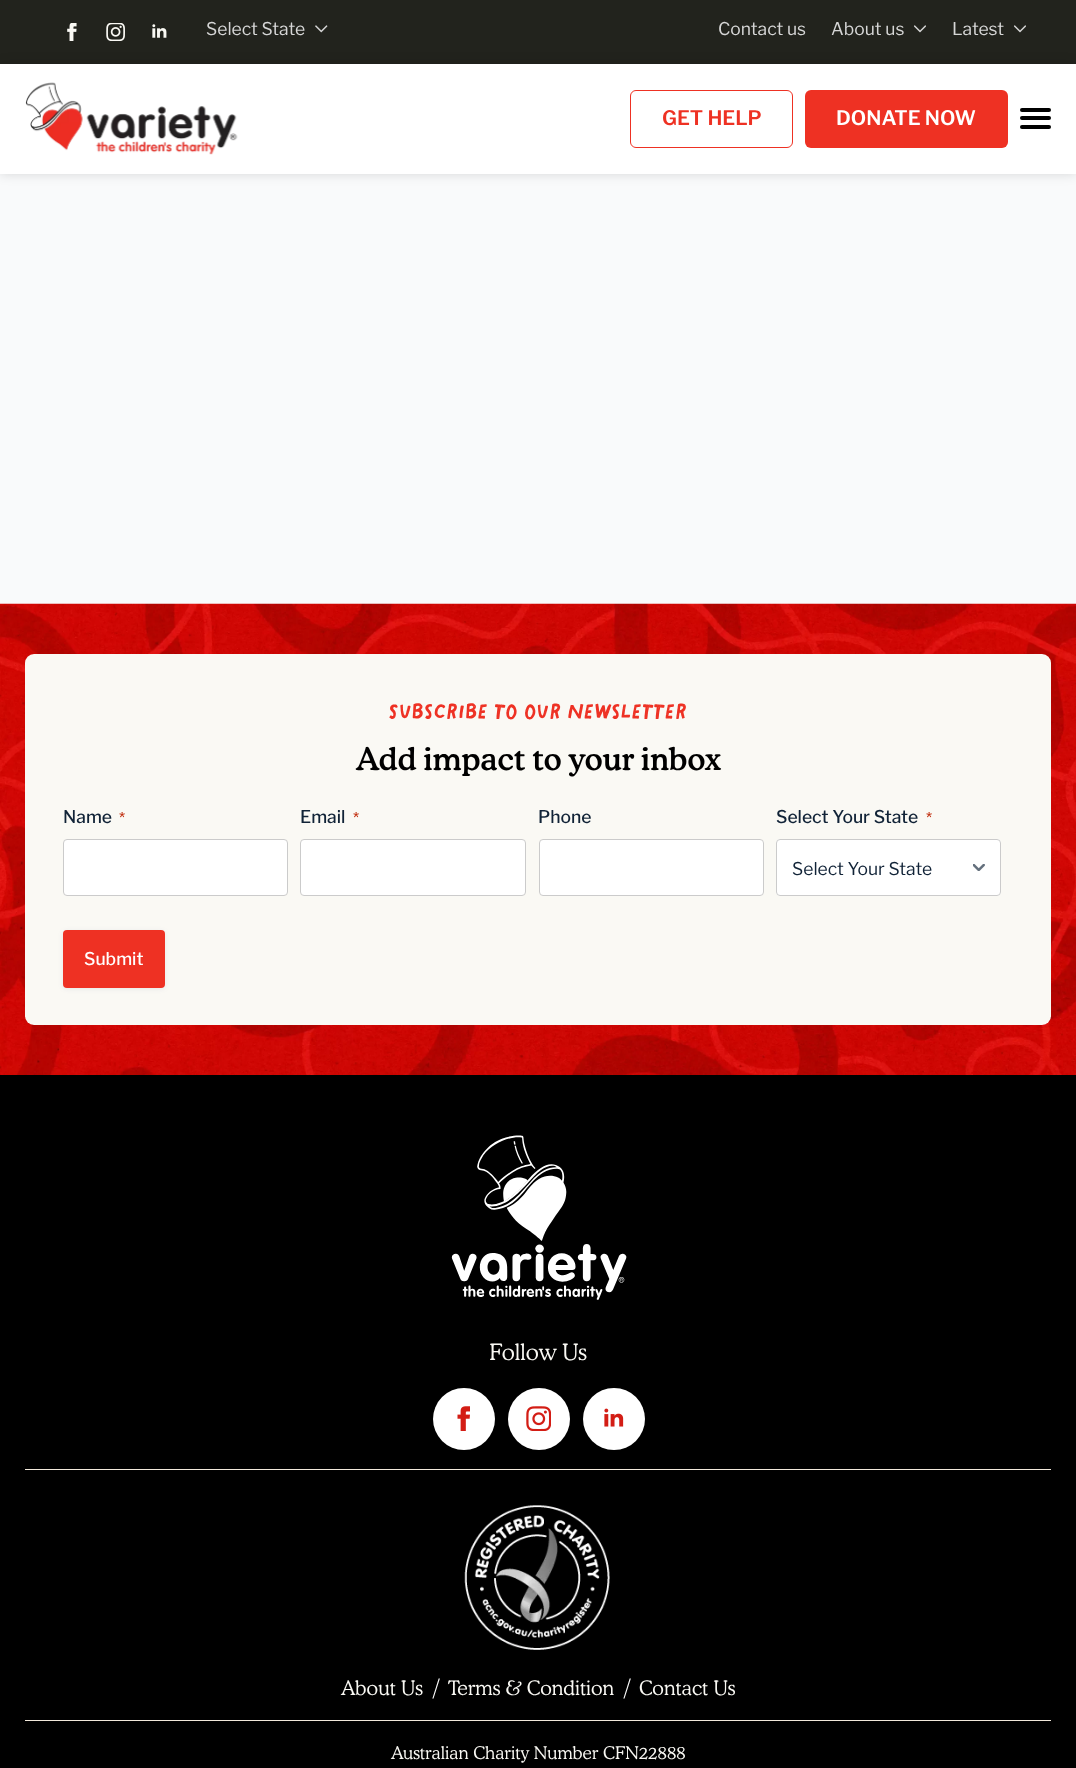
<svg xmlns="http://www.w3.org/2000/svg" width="1076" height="1768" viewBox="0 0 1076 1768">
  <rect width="100%" height="100%" fill="rgb(249,250,251)"/>
  <rect x="0" y="0" width="1076" height="64" fill="rgb(34,35,29)"/>
  <image x="67" y="23" width="10" height="18" href="pic1.png"/>
  <image x="106" y="23" width="19" height="18" href="pic2.png"/>
  <image x="152" y="24" width="15" height="14" href="pic3.png"/>
  <text x="206" y="35" font-family="Libre Franklin" font-size="17.5" fill="rgb(214,214,214)">Select State</text>
  <image x="315" y="25" width="13" height="8" href="pic4.png"/>
  <g font-family="Libre Franklin" font-size="17.5" fill="rgb(214,214,214)">
    <text x="718" y="35">Contact us</text>
    <text x="831" y="35">About us</text>
  </g>
  <image x="914" y="25" width="12" height="8" href="pic5.png"/>
  <text x="952" y="35" font-family="Libre Franklin" font-size="17.5" fill="rgb(214,214,214)">Latest</text>
  <image x="1014" y="25" width="12" height="8" href="pic5.png"/>
  <rect x="0" y="64" width="1076" height="110" fill="rgba(0,0,0,0.14)" filter="blur(6px)"/>
  <rect x="0" y="64" width="1076" height="110" fill="rgb(255,255,255)"/>
  <image x="25" y="82" width="213" height="73" href="pic6.png"/>
  <rect x="630.5" y="90.5" width="162" height="57" rx="5.5" fill="none" stroke="rgb(238,49,35)"/>
  <text x="662" y="125" font-family="Libre Franklin" font-size="20" font-weight="600" fill="rgb(238,49,35)">GET HELP</text>
  <rect x="805" y="90" width="203" height="58" rx="6" fill="rgb(238,49,35)"/>
  <text x="836" y="125" font-family="Libre Franklin" font-size="20" font-weight="600" fill="rgb(255,255,255)">DONATE NOW</text>
  <rect x="1020" y="116" width="31" height="4" rx="2" fill="rgb(0,0,0)"/>
  <rect x="1020" y="108" width="31" height="4" rx="2" fill="rgb(0,0,0)"/>
  <rect x="1020" y="125" width="31" height="4" rx="2" fill="rgb(0,0,0)"/>
  <image x="0" y="603" width="1076" height="472" href="pic7.png"/>
  <rect x="25" y="654" width="1026" height="371" rx="9" fill="rgb(250,249,244)"/>
  <text x="388" y="719" font-family="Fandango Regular" font-size="31.25" fill="rgb(238,49,35)">Subscribe to our newsletter</text>
  <text x="356" y="770" font-family="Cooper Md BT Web" font-size="31.25" fill="rgb(0,0,0)">Add impact to your inbox</text>
  <text x="63" y="823" font-family="Libre Franklin" font-size="17.5" font-weight="500" fill="rgb(17,35,55)">Name</text>
  <text x="119" y="823" font-family="Libre Franklin" font-size="15" font-weight="500" fill="rgb(192,43,10)">*</text>
  <rect x="63.5" y="839.5" width="224" height="56" rx="3.5" fill="rgb(255,255,255)" stroke="rgb(203,203,203)"/>
  <text x="300" y="823" font-family="Libre Franklin" font-size="17.5" font-weight="500" fill="rgb(17,35,55)">Email</text>
  <text x="353" y="823" font-family="Libre Franklin" font-size="15" font-weight="500" fill="rgb(192,43,10)">*</text>
  <rect x="300.5" y="839.5" width="225" height="56" rx="3.5" fill="rgb(255,255,255)" stroke="rgb(203,203,203)"/>
  <text x="538" y="823" font-family="Libre Franklin" font-size="17.5" font-weight="500" fill="rgb(17,35,55)">Phone</text>
  <rect x="539.5" y="839.5" width="224" height="56" rx="3.5" fill="rgb(255,255,255)" stroke="rgb(203,203,203)"/>
  <text x="776" y="823" font-family="Libre Franklin" font-size="17.5" font-weight="500" fill="rgb(17,35,55)">Select Your State</text>
  <text x="926" y="823" font-family="Libre Franklin" font-size="15" font-weight="500" fill="rgb(192,43,10)">*</text>
  <rect x="776" y="839" width="225" height="57" rx="4" fill="rgb(255,255,255)"/>
  <image x="973" y="864" width="12" height="7" href="pic8.png"/>
  <rect x="776.5" y="839.5" width="224" height="56" rx="3.5" fill="none" stroke="rgb(203,203,203)"/>
  <text x="792" y="875" font-family="Libre Franklin" font-size="17.5" fill="rgb(17,35,55)">Select Your State</text>
  <rect x="63" y="931" width="102" height="58" rx="4" fill="rgba(18,25,97,0.08)" filter="blur(2.5px)"/>
  <rect x="63" y="930" width="102" height="58" rx="4" fill="rgb(238,49,35)"/>
  <text x="84" y="965" font-family="Libre Franklin" font-size="17.5" font-weight="500" fill="rgb(255,255,255)">Submit</text>
  <rect x="0" y="1075" width="1076" height="693" fill="rgb(0,0,0)"/>
  <image x="451" y="1135" width="176" height="165" href="pic9.png"/>
  <rect x="25" y="1469" width="1026" height="1" fill="rgb(242,233,220)"/>
  <text x="489" y="1360" font-family="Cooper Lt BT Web" font-size="22.5" fill="rgb(250,249,244)">Follow Us</text>
  <circle cx="464" cy="1419" r="31" fill="rgb(255,255,255)"/>
  <image x="457" y="1406" width="13" height="25" href="pic10.png"/>
  <circle cx="539" cy="1419" r="31" fill="rgb(255,255,255)"/>
  <image x="526" y="1406" width="25" height="25" href="pic11.png"/>
  <circle cx="614" cy="1419" r="31" fill="rgb(255,255,255)"/>
  <image x="604" y="1408" width="20" height="19" href="pic12.png"/>
  <image x="464" y="1505" width="146" height="145" href="pic13.png"/>
  <text x="341" y="1695" font-family="Cooper Lt BT Web" font-size="20" fill="rgb(250,249,244)">About Us</text>
  <text x="432" y="1697" font-family="Libre Franklin" font-size="25" font-weight="100" fill="rgb(255,255,255)">/</text>
  <text x="448" y="1695" font-family="Cooper Lt BT Web" font-size="20" fill="rgb(250,249,244)">Terms &amp; Condition</text>
  <text x="623" y="1697" font-family="Libre Franklin" font-size="25" font-weight="100" fill="rgb(255,255,255)">/</text>
  <text x="639" y="1695" font-family="Cooper Lt BT Web" font-size="20" fill="rgb(250,249,244)">Contact Us</text>
  <rect x="25" y="1720" width="1026" height="1" fill="rgb(242,233,220)"/>
  <text x="391" y="1759" font-family="Cooper Lt BT Web" font-size="17.5" fill="rgb(250,249,244)">Australian Charity Number CFN22888</text>
</svg>
